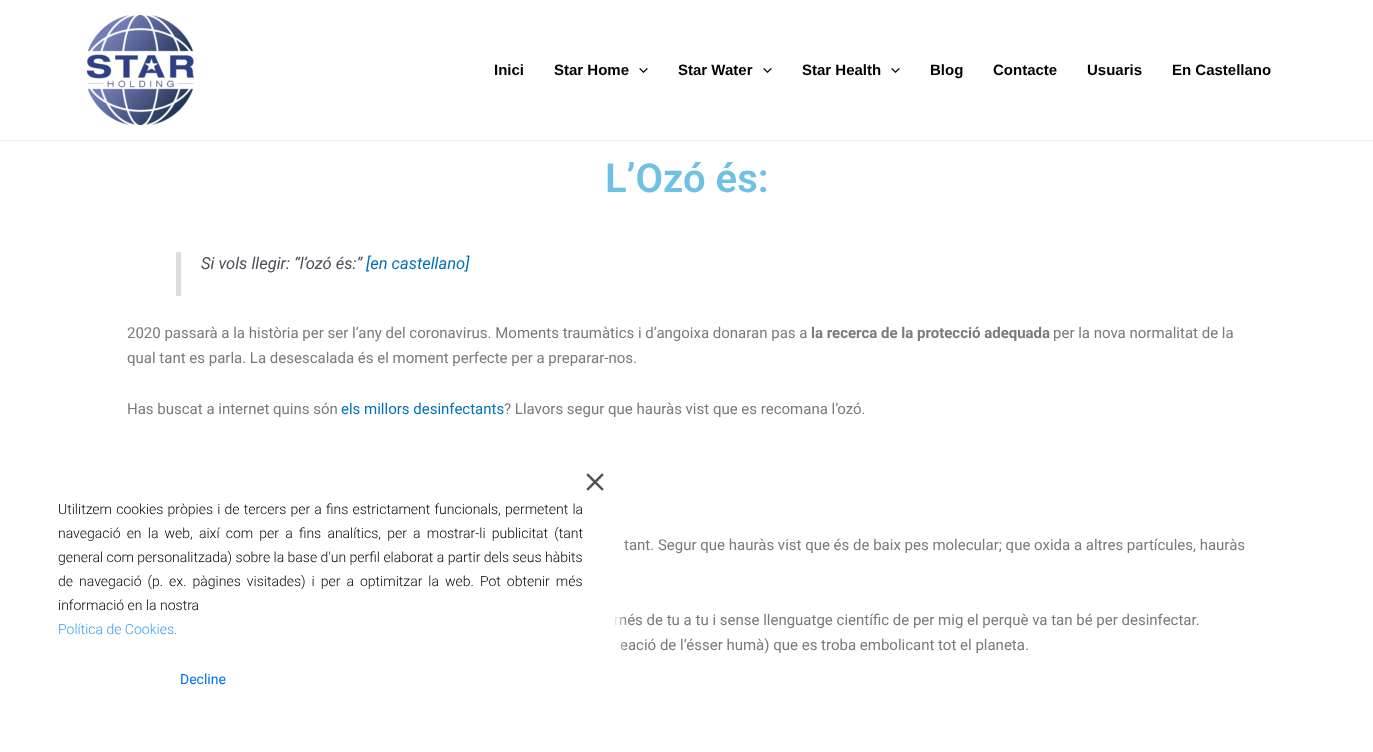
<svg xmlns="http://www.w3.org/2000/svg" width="1373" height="752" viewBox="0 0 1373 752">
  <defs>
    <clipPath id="clip1"><path d="M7 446H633V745H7ZM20 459H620V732H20Z" clip-rule="evenodd"/></clipPath>
  </defs>
  <rect width="100%" height="100%" fill="rgb(255,255,255)"/>
  <rect x="0" y="140" width="1373" height="1" fill="rgb(234,234,234)"/>
  <image x="87" y="15" width="107" height="110" href="pic1.png"/>
  <g font-family="Liberation Sans" font-size="15" font-weight="bold" fill="rgb(0,0,0)">
    <text x="494" y="75">Inici</text>
    <text x="554" y="75">Star Home</text>
  </g>
  <image x="639" y="68" width="9" height="5" href="pic2.png"/>
  <text x="678" y="75" font-family="Liberation Sans" font-size="15" font-weight="bold" fill="rgb(0,0,0)">Star Water</text>
  <image x="763" y="68" width="9" height="5" href="pic2.png"/>
  <text x="802" y="75" font-family="Liberation Sans" font-size="15" font-weight="bold" fill="rgb(0,0,0)">Star Health</text>
  <image x="891" y="68" width="9" height="5" href="pic2.png"/>
  <g font-family="Liberation Sans" font-size="15" font-weight="bold" fill="rgb(0,0,0)">
    <text x="930" y="75">Blog</text>
    <text x="993" y="75">Contacte</text>
    <text x="1087" y="75">Usuaris</text>
    <text x="1172" y="75">En Castellano</text>
  </g>
  <text x="605" y="192" font-family="Roboto" font-size="40" font-weight="600" fill="rgb(110,193,228)">L’Ozó és:</text>
  <rect x="176" y="252" width="5" height="44" fill="rgb(221,221,221)"/>
  <text x="201" y="269" font-family="Roboto" font-size="16.5" font-style="italic" fill="rgb(75,79,88)">Si vols llegir: “l’ozó és:”</text>
  <text x="366" y="269" font-family="Roboto" font-size="16.5" font-style="italic" fill="rgb(1,112,185)">[en castellano]</text>
  <text x="127" y="338" font-family="Roboto" font-size="15" fill="rgb(122,122,122)">2020 passarà a la història per ser l’any del coronavirus. Moments traumàtics i d’angoixa donaran pas a</text>
  <text x="811" y="338" font-family="Roboto" font-size="15" font-weight="bold" fill="rgb(122,122,122)">la recerca de la protecció adequada</text>
  <g font-family="Roboto" font-size="15" fill="rgb(122,122,122)">
    <text x="1053" y="338">per la nova normalitat de la</text>
    <text x="127" y="363">qual tant es parla. La desescalada és el moment perfecte per a preparar-nos.</text>
    <text x="127" y="414">Has buscat a internet quins són</text>
  </g>
  <text x="341" y="414" font-family="Roboto" font-size="15" fill="rgb(1,112,185)">els millors desinfectants</text>
  <g font-family="Roboto" font-size="15" fill="rgb(122,122,122)">
    <text x="504" y="414">? Llavors segur que hauràs vist que es recomana l’ozó.</text>
    <text x="624" y="550">tant. Segur que hauràs vist que és de baix pes molecular; que oxida a altres partícules, hauràs</text>
    <text x="614" y="625">més de tu a tu i sense llenguatge científic de per mig el perquè va tan bé per desinfectar.</text>
    <text x="620" y="650">eació de l’ésser humà) que es troba embolicant tot el planeta.</text>
  </g>
  <g clip-path="url(#clip1)">
    <rect x="20" y="459" width="600" height="273" fill="rgb(255,255,255)" filter="blur(4px)"/>
  </g>
  <rect x="614" y="616" width="6" height="9" fill="rgba(255,255,255,0.8)"/>
  <image x="586" y="473" width="18" height="18" href="pic3.png"/>
  <g font-family="Roboto" font-size="14" font-weight="300" fill="rgb(0,0,0)">
    <text>
      <tspan x="58" y="514" word-spacing="0.75">Utilitzem cookies pròpies i de tercers per a fins estrictament funcionals, permetent la</tspan>
      <tspan x="58" y="538" word-spacing="2.75">navegació en la web, així com per a fins analítics, per a mostrar-li publicitat (tant</tspan>
      <tspan x="58" y="562">general com personalitzada) sobre la base d'un perfil elaborat a partir dels seus hàbits</tspan>
      <tspan x="58" y="586" word-spacing="2.6">de navegació (p. ex. pàgines visitades) i per a optimitzar la web. Pot obtenir més</tspan>
      <tspan x="58" y="610">informació en la nostra</tspan>
    </text>
  </g>
  <text x="58" y="634" font-family="Roboto" font-size="14" font-weight="300" fill="rgb(53,155,245)">Política de Cookies.</text>
  <text x="180" y="684" font-family="Roboto" font-size="14" fill="rgb(0,114,233)">Decline</text>
</svg>
